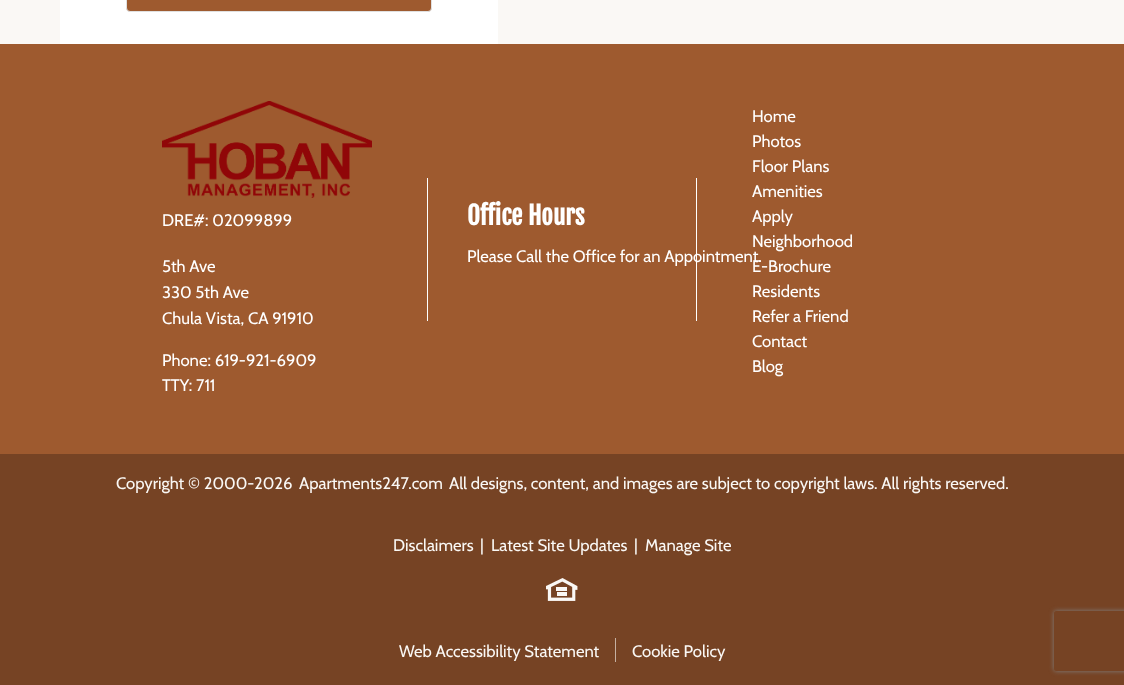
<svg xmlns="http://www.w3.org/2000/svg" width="1124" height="685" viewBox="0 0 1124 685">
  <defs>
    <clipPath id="clip1"><path d="M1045 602H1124V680H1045ZM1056 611H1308C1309 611 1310 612 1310 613V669C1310 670 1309 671 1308 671H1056C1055 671 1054 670 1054 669V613C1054 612 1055 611 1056 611Z" clip-rule="evenodd"/></clipPath>
  </defs>
  <rect width="100%" height="100%" fill="rgb(250,248,245)"/>
  <rect x="60" y="0" width="438" height="44" fill="rgb(255,255,255)"/>
  <rect x="126.5" y="-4.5" width="305" height="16" rx="3.5" fill="rgb(158,90,47)" stroke="rgb(224,224,224)"/>
  <rect x="0" y="44" width="1124" height="410" fill="rgb(158,90,47)"/>
  <image x="162" y="101" width="210" height="97" href="pic1.png"/>
  <g font-family="Cabin" font-size="16.65" fill="rgb(255,255,255)">
    <text x="162" y="226">DRE#: 02099899</text>
    <text>
      <tspan x="162" y="272">5th Ave</tspan>
      <tspan x="162" y="298">330 5th Ave</tspan>
      <tspan x="162" y="324">Chula Vista, CA 91910</tspan>
    </text>
    <text>
      <tspan x="162" y="366">Phone: 619-921-6909</tspan>
      <tspan x="162" y="391">TTY: 711</tspan>
    </text>
  </g>
  <rect x="696" y="178" width="1" height="143" fill="rgb(255,255,255)"/>
  <rect x="427" y="178" width="1" height="143" fill="rgb(255,255,255)"/>
  <text x="467" y="225" font-family="Fjalla One" font-size="25" font-weight="bold" fill="rgb(255,255,255)">Office Hours</text>
  <g font-family="Cabin" font-size="16.65" fill="rgb(255,255,255)">
    <text x="467" y="262">Please Call the Office for an Appointment.</text>
    <text>
      <tspan x="752" y="122">Home</tspan>
      <tspan x="752" y="147">Photos</tspan>
      <tspan x="752" y="172">Floor Plans</tspan>
      <tspan x="752" y="197">Amenities</tspan>
      <tspan x="752" y="222">Apply</tspan>
      <tspan x="752" y="247">Neighborhood</tspan>
      <tspan x="752" y="272">E-Brochure</tspan>
      <tspan x="752" y="297">Residents</tspan>
      <tspan x="752" y="322">Refer a Friend</tspan>
      <tspan x="752" y="347">Contact</tspan>
      <tspan x="752" y="372">Blog</tspan>
    </text>
  </g>
  <rect x="0" y="454" width="1124" height="231" fill="rgb(118,67,36)"/>
  <g font-family="Cabin" font-size="16.65" fill="rgb(250,248,245)">
    <text x="116" y="489">Copyright © 2000-2026</text>
    <text x="299" y="489">Apartments247.com</text>
    <text x="449" y="489">All designs, content, and images are subject to copyright laws. All rights reserved.</text>
    <text x="393" y="551">Disclaimers</text>
    <text x="480" y="551">|</text>
    <text x="491" y="551">Latest Site Updates</text>
    <text x="634" y="551">|</text>
    <text x="645" y="551">Manage Site</text>
  </g>
  <image x="546" y="578" width="32" height="23" href="pic2.png"/>
  <text x="399" y="657" font-family="Cabin" font-size="16.65" fill="rgb(250,248,245)">Web Accessibility Statement</text>
  <rect x="615" y="638" width="1" height="24" fill="rgb(197,176,161)"/>
  <text x="632" y="657" font-family="Cabin" font-size="16.65" fill="rgb(250,248,245)">Cookie Policy</text>
  <g clip-path="url(#clip1)">
    <rect x="1054" y="611" width="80" height="60" rx="2" fill="rgb(128,128,128)" filter="blur(2.5px)"/>
  </g>
</svg>
